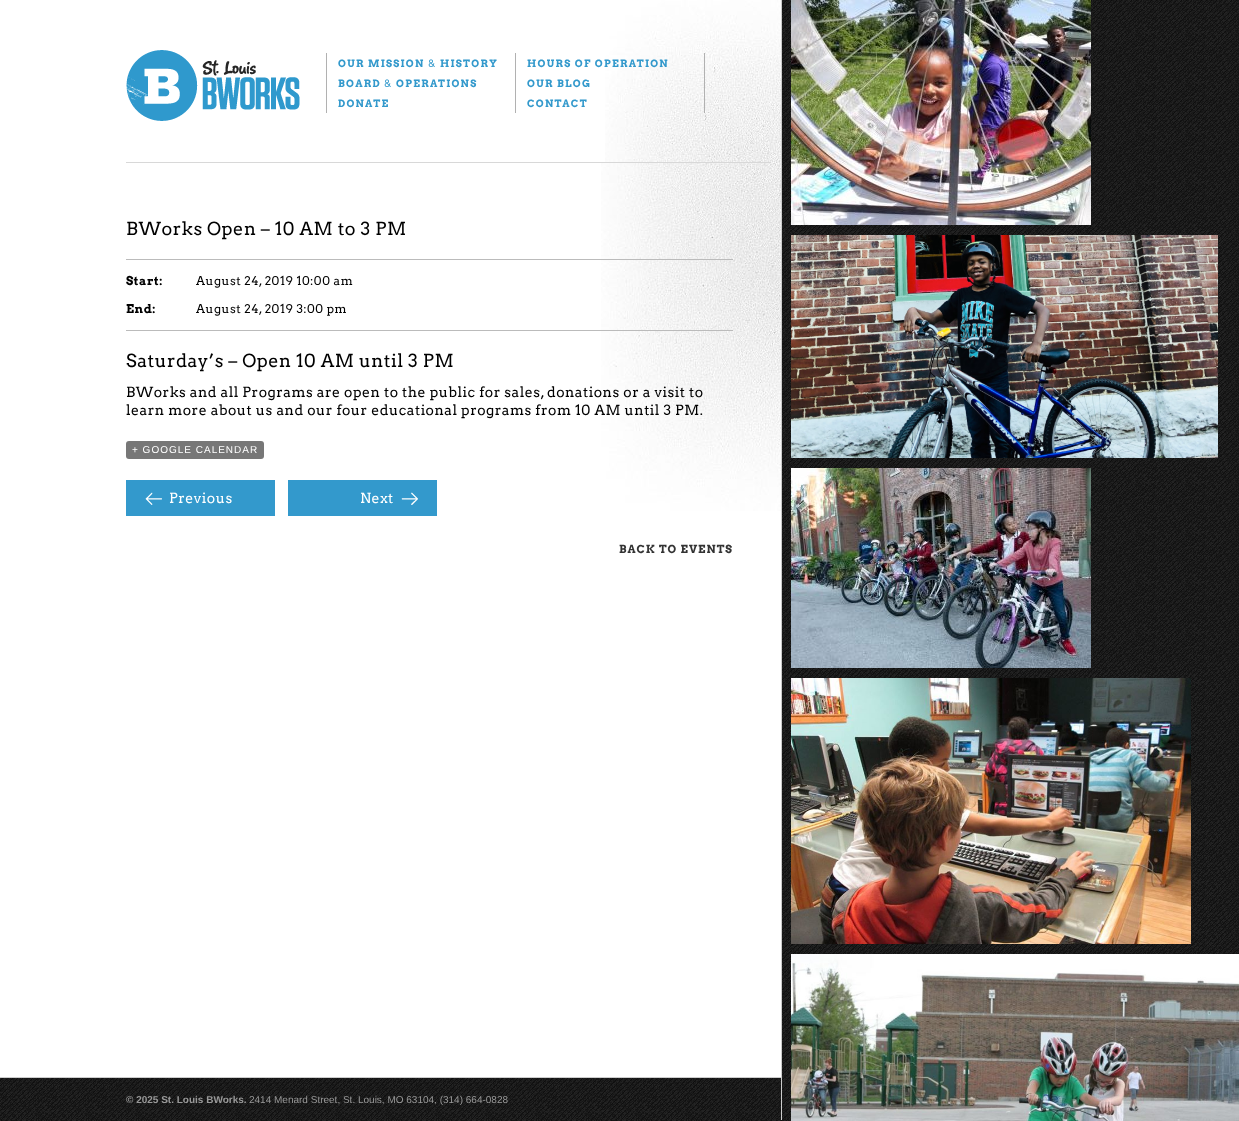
<svg xmlns="http://www.w3.org/2000/svg" width="1239" height="1121" viewBox="0 0 1239 1121">
  <rect width="100%" height="100%" fill="rgb(255,255,255)"/>
  <image x="0" y="0" width="1239" height="1121" href="pic1.png"/>
  <rect x="0" y="163" width="781" height="914" fill="rgb(255,255,255)"/>
  <image x="601" y="163" width="180" height="348" href="pic2.png"/>
  <rect x="781" y="0" width="1" height="1120" fill="rgb(204,204,204)"/>
  <rect x="0" y="0" width="605" height="163" fill="rgb(255,255,255)"/>
  <image x="605" y="0" width="176" height="163" href="pic3.png"/>
  <rect x="126" y="162" width="645" height="1" fill="rgb(216,216,216)"/>
  <image x="126" y="50" width="174" height="71" href="pic4.png"/>
  <rect x="326" y="53" width="1" height="60" fill="rgb(177,177,177)"/>
  <rect x="515" y="53" width="1" height="60" fill="rgb(177,177,177)"/>
  <text x="338" y="67" font-family="Arvo" font-size="10" font-weight="bold" letter-spacing="1.25" fill="rgb(51,153,204)">OUR MISSION</text>
  <text x="428" y="67" font-family="Arvo" font-size="10" letter-spacing="1.25" fill="rgb(51,153,204)">&amp;</text>
  <text x="440" y="67" font-family="Arvo" font-size="10" font-weight="bold" letter-spacing="1.25" fill="rgb(51,153,204)">HISTORY</text>
  <rect x="704" y="53" width="1" height="60" fill="rgb(177,177,177)"/>
  <g font-family="Arvo" font-size="10" font-weight="bold" letter-spacing="1.25" fill="rgb(51,153,204)">
    <text x="527" y="67">HOURS OF OPERATION</text>
    <text x="338" y="87">BOARD</text>
  </g>
  <text x="384" y="87" font-family="Arvo" font-size="10" letter-spacing="1.25" fill="rgb(51,153,204)">&amp;</text>
  <g font-family="Arvo" font-size="10" font-weight="bold" letter-spacing="1.25" fill="rgb(51,153,204)">
    <text x="396" y="87">OPERATIONS</text>
    <text x="527" y="87">OUR BLOG</text>
    <text x="338" y="107">DONATE</text>
    <text x="527" y="107">CONTACT</text>
  </g>
  <text x="126" y="235" font-family="Arvo" font-size="18" letter-spacing="0.5" fill="rgb(0,0,0)">BWorks Open – 10 AM to 3 PM</text>
  <rect x="126" y="259" width="607" height="1" fill="rgb(187,187,187)"/>
  <rect x="126" y="330" width="607" height="1" fill="rgb(187,187,187)"/>
  <text x="126" y="285" font-family="Arvo" font-size="12" font-weight="bold" letter-spacing="0.5" fill="rgb(0,0,0)">Start:</text>
  <text x="196" y="285" font-family="Arvo" font-size="12" letter-spacing="0.5" fill="rgb(0,0,0)">August 24, 2019 10:00 am</text>
  <text x="126" y="313" font-family="Arvo" font-size="12" font-weight="bold" letter-spacing="0.5" fill="rgb(0,0,0)">End:</text>
  <text x="196" y="313" font-family="Arvo" font-size="12" letter-spacing="0.5" fill="rgb(0,0,0)">August 24, 2019 3:00 pm</text>
  <text x="126" y="367" font-family="Arvo" font-size="18" letter-spacing="0.5" fill="rgb(0,0,0)">Saturday’s – Open 10 AM until 3 PM</text>
  <g font-family="Arvo" font-size="14" letter-spacing="0.5" fill="rgb(0,0,0)">
    <text>
      <tspan x="126" y="397">BWorks and all Programs are open to the public for sales, donations or a visit to</tspan>
      <tspan x="126" y="415">learn more about us and our four educational programs from 10 AM until 3 PM.</tspan>
    </text>
  </g>
  <rect x="126" y="441" width="138" height="18" rx="3" fill="rgb(119,119,119)"/>
  <text x="132" y="453" font-family="Liberation Sans" font-size="10" letter-spacing="1" fill="rgb(255,255,255)">+ GOOGLE CALENDAR</text>
  <rect x="126" y="480" width="149" height="36" fill="rgb(51,153,204)"/>
  <image x="145" y="492" width="17" height="13" href="pic5.png"/>
  <text x="169" y="503" font-family="Arvo" font-size="14" letter-spacing="0.5" fill="rgb(255,255,255)">Previous</text>
  <rect x="288" y="480" width="149" height="36" fill="rgb(51,153,204)"/>
  <image x="401" y="492" width="17" height="13" href="pic6.png"/>
  <text x="360" y="503" font-family="Arvo" font-size="14" letter-spacing="0.5" fill="rgb(255,255,255)">Next</text>
  <text x="619" y="553" font-family="Arvo" font-size="11" font-weight="bold" letter-spacing="1" fill="rgb(51,51,51)">BACK TO EVENTS</text>
  <image x="791" y="0" width="300" height="225" href="pic7.png"/>
  <image x="791" y="235" width="427" height="223" href="pic8.png"/>
  <image x="791" y="468" width="300" height="200" href="pic9.png"/>
  <image x="791" y="678" width="400" height="266" href="pic10.png"/>
  <image x="791" y="954" width="448" height="167" href="pic11.png"/>
  <image x="0" y="1078" width="781" height="42" href="pic12.png"/>
  <rect x="0" y="1077" width="781" height="1" fill="rgb(204,204,204)"/>
  <text x="126" y="1103" font-family="Liberation Sans" font-size="10" font-weight="bold" fill="rgb(153,153,153)">© 2025 St. Louis BWorks.</text>
  <text x="249" y="1103" font-family="Liberation Sans" font-size="10" fill="rgb(153,153,153)">2414 Menard Street, St. Louis, MO 63104, (314) 664-0828</text>
</svg>
